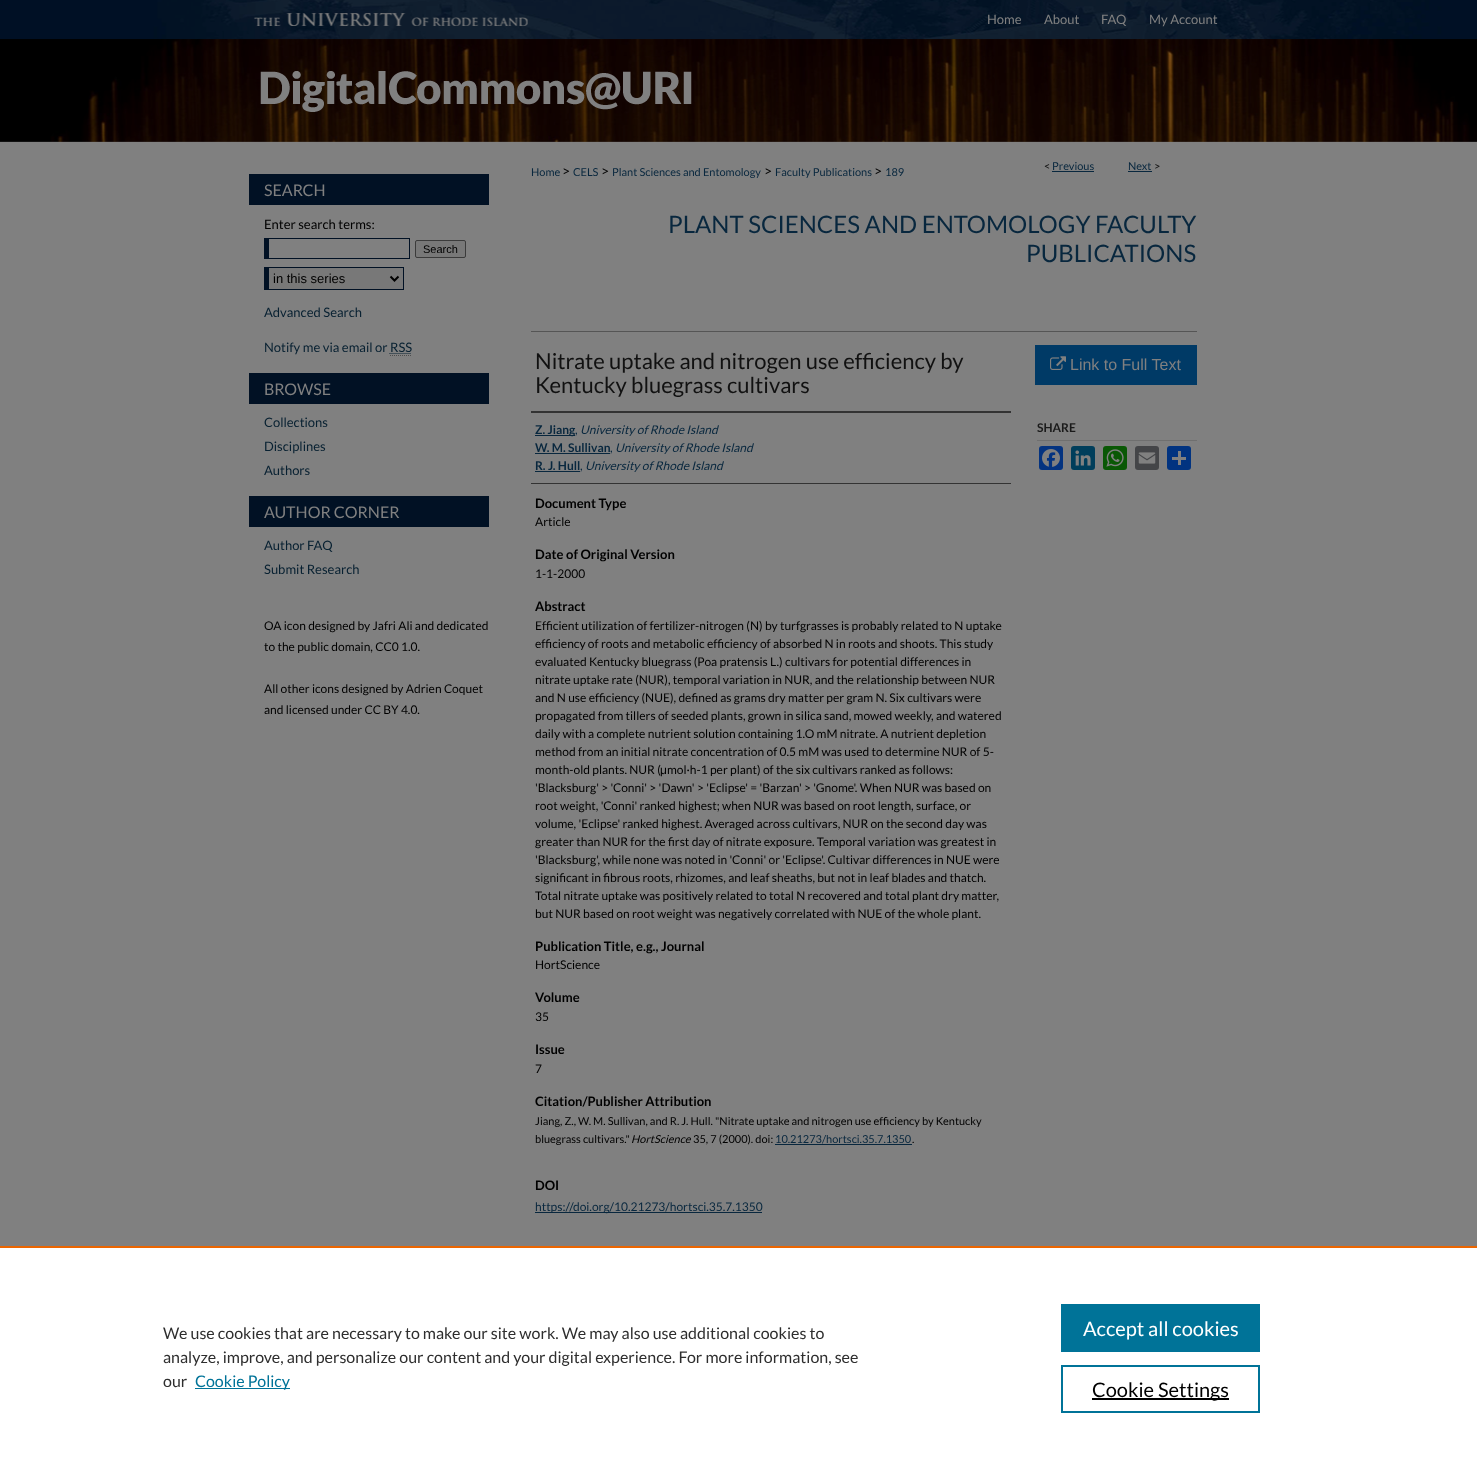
<svg xmlns="http://www.w3.org/2000/svg" width="1477" height="1466" viewBox="0 0 1477 1466">
  <rect width="100%" height="100%" fill="rgb(128,128,128)"/>
  <image x="0" y="0" width="1477" height="142" href="pic1.png"/>
  <g font-family="Lato" font-size="13" fill="rgb(128,128,128)">
    <text x="987" y="24">Home</text>
    <text x="1044" y="24">About</text>
    <text x="1101" y="24">FAQ</text>
    <text x="1149" y="24">My Account</text>
  </g>
  <image x="260" y="71" width="432" height="41" href="pic2.png"/>
  <rect x="249" y="174" width="240" height="31" fill="rgb(1,17,36)"/>
  <text x="264" y="196" font-family="Lato" font-size="16" fill="rgb(128,128,128)">SEARCH</text>
  <text x="264" y="229" font-family="Lato" font-size="13" fill="rgb(0,0,0)">Enter search terms:</text>
  <rect x="264" y="238" width="146" height="1" fill="rgb(1,17,36)"/>
  <rect x="409" y="238" width="1" height="21" fill="rgb(1,17,36)"/>
  <rect x="264" y="258" width="146" height="1" fill="rgb(1,17,36)"/>
  <rect x="264" y="238" width="5" height="21" fill="rgb(1,17,36)"/>
  <rect x="415.5" y="240.5" width="50" height="17" rx="1.5" fill="rgb(120,120,120)" stroke="rgb(59,59,59)"/>
  <text x="423" y="253" font-family="Liberation Sans" font-size="11" fill="rgb(0,0,0)">Search</text>
  <rect x="269" y="268" width="134" height="21" fill="rgb(120,120,120)"/>
  <rect x="264" y="267" width="140" height="1" fill="rgb(1,17,36)"/>
  <rect x="403" y="267" width="1" height="23" fill="rgb(1,17,36)"/>
  <rect x="264" y="289" width="140" height="1" fill="rgb(1,17,36)"/>
  <rect x="264" y="267" width="5" height="23" fill="rgb(1,17,36)"/>
  <path d="M390.5 276.5L394.5 280.5L398.5 276.5" fill="none" stroke="rgb(0,0,0)" stroke-width="2"/>
  <text x="273" y="283" font-family="Liberation Sans" font-size="13" fill="rgb(0,0,0)">in this series</text>
  <g font-family="Lato" font-size="13" fill="rgb(7,32,49)">
    <text x="264" y="317">Advanced Search</text>
    <text x="264" y="352">Notify me via email or RSS</text>
  </g>
  <path d="M389.5 353.5H411.5" fill="none" stroke="rgb(7,32,49)" stroke-dasharray="1 1"/>
  <path d="M390 355.5H412" fill="none" stroke="rgb(77,77,77)" stroke-dasharray="1 1"/>
  <rect x="249" y="373" width="240" height="31" fill="rgb(1,17,36)"/>
  <text x="264" y="395" font-family="Lato" font-size="16" fill="rgb(128,128,128)">BROWSE</text>
  <g font-family="Lato" font-size="13" fill="rgb(7,32,49)">
    <text>
      <tspan x="264" y="427">Collections</tspan>
      <tspan x="264" y="451">Disciplines</tspan>
      <tspan x="264" y="475">Authors</tspan>
    </text>
  </g>
  <rect x="249" y="496" width="240" height="31" fill="rgb(1,17,36)"/>
  <text x="264" y="518" font-family="Lato" font-size="16" fill="rgb(128,128,128)">AUTHOR CORNER</text>
  <g font-family="Lato" font-size="13" fill="rgb(7,32,49)">
    <text>
      <tspan x="264" y="550">Author FAQ</tspan>
      <tspan x="264" y="574">Submit Research</tspan>
    </text>
  </g>
  <g font-family="Lato" font-size="12" fill="rgb(0,0,0)">
    <text>
      <tspan x="264" y="630">OA icon designed by Jafri Ali and dedicated</tspan>
      <tspan x="264" y="651">to the public domain, CC0 1.0.</tspan>
    </text>
    <text>
      <tspan x="264" y="693">All other icons designed by Adrien Coquet</tspan>
      <tspan x="264" y="714">and licensed under CC BY 4.0.</tspan>
    </text>
  </g>
  <text x="531" y="176" font-family="Lato" font-size="11" fill="rgb(8,39,62)">Home</text>
  <text x="562" y="176" font-family="Lato" font-size="14" fill="rgb(0,0,0)">&gt;</text>
  <text x="573" y="176" font-family="Lato" font-size="11" fill="rgb(8,39,62)">CELS</text>
  <text x="601" y="176" font-family="Lato" font-size="14" fill="rgb(0,0,0)">&gt;</text>
  <text x="612" y="176" font-family="Lato" font-size="11" fill="rgb(8,39,62)">Plant Sciences and Entomology</text>
  <text x="764" y="176" font-family="Lato" font-size="14" fill="rgb(0,0,0)">&gt;</text>
  <text x="775" y="176" font-family="Lato" font-size="11" fill="rgb(8,39,62)">Faculty Publications</text>
  <text x="874" y="176" font-family="Lato" font-size="14" fill="rgb(0,0,0)">&gt;</text>
  <text x="885" y="176" font-family="Lato" font-size="11" fill="rgb(8,39,62)">189</text>
  <text x="1044" y="170" font-family="Lato" font-size="11" fill="rgb(17,17,17)">&lt;</text>
  <text x="1052" y="170" font-family="Lato" font-size="11" fill="rgb(8,39,62)">Previous</text>
  <rect x="1052" y="171" width="42" height="1" fill="rgb(8,39,62)"/>
  <text x="1128" y="170" font-family="Lato" font-size="11" fill="rgb(8,39,62)">Next</text>
  <rect x="1128" y="171" width="24" height="1" fill="rgb(8,39,62)"/>
  <text x="1154" y="170" font-family="Lato" font-size="11" fill="rgb(17,17,17)">&gt;</text>
  <g font-family="Lato" font-size="24" fill="rgb(8,39,62)">
    <text x="668" y="233">PLANT SCIENCES AND ENTOMOLOGY FACULTY</text>
    <text x="1026" y="262">PUBLICATIONS</text>
  </g>
  <rect x="531" y="331" width="666" height="1" fill="rgb(85,85,85)"/>
  <g font-family="Lato" font-size="22" fill="rgb(17,17,17)">
    <text>
      <tspan x="535" y="369">Nitrate uptake and nitrogen use efficiency by</tspan>
      <tspan x="535" y="393">Kentucky bluegrass cultivars</tspan>
    </text>
  </g>
  <rect x="531" y="411" width="480" height="2" fill="rgb(51,51,51)"/>
  <rect x="531" y="483" width="480" height="1" fill="rgb(51,51,51)"/>
  <rect x="535" y="435" width="40" height="1" fill="rgb(8,39,62)"/>
  <text x="535" y="434" font-family="Lato" font-size="12" font-weight="bold" fill="rgb(8,39,62)">Z. Jiang</text>
  <text x="575" y="434" font-family="Lato" font-size="12" fill="rgb(8,39,62)">,</text>
  <text x="580" y="434" font-family="Lato" font-size="12" font-style="italic" fill="rgb(8,39,62)">University of Rhode Island</text>
  <text x="535" y="452" font-family="Lato" font-size="12" font-weight="bold" fill="rgb(8,39,62)">W. M. Sullivan</text>
  <rect x="535" y="453" width="75" height="1" fill="rgb(8,39,62)"/>
  <text x="610" y="452" font-family="Lato" font-size="12" fill="rgb(8,39,62)">,</text>
  <text x="615" y="452" font-family="Lato" font-size="12" font-style="italic" fill="rgb(8,39,62)">University of Rhode Island</text>
  <text x="535" y="470" font-family="Lato" font-size="12" font-weight="bold" fill="rgb(8,39,62)">R. J. Hull</text>
  <rect x="535" y="471" width="45" height="1" fill="rgb(8,39,62)"/>
  <text x="580" y="470" font-family="Lato" font-size="12" fill="rgb(8,39,62)">,</text>
  <text x="585" y="470" font-family="Lato" font-size="12" font-style="italic" fill="rgb(8,39,62)">University of Rhode Island</text>
  <text x="535" y="508" font-family="Lato" font-size="13" font-weight="bold" fill="rgb(0,0,0)">Document Type</text>
  <text x="535" y="526" font-family="Lato" font-size="12" fill="rgb(0,0,0)">Article</text>
  <text x="535" y="559" font-family="Lato" font-size="13" font-weight="bold" fill="rgb(0,0,0)">Date of Original Version</text>
  <text x="535" y="578" font-family="Lato" font-size="12" fill="rgb(0,0,0)">1-1-2000</text>
  <text x="535" y="611" font-family="Lato" font-size="13" font-weight="bold" fill="rgb(0,0,0)">Abstract</text>
  <g font-family="Lato" font-size="12" fill="rgb(0,0,0)">
    <text>
      <tspan x="535" y="630">Efficient utilization of fertilizer-nitrogen (N) by turfgrasses is probably related to N uptake</tspan>
      <tspan x="535" y="648">efficiency of roots and metabolic efficiency of absorbed N in roots and shoots. This study</tspan>
      <tspan x="535" y="666">evaluated Kentucky bluegrass (Poa pratensis L.) cultivars for potential differences in</tspan>
      <tspan x="535" y="684">nitrate uptake rate (NUR), temporal variation in NUR, and the relationship between NUR</tspan>
      <tspan x="535" y="702">and N use efficiency (NUE), defined as grams dry matter per gram N. Six cultivars were</tspan>
      <tspan x="535" y="720">propagated from tillers of seeded plants, grown in silica sand, mowed weekly, and watered</tspan>
      <tspan x="535" y="738">daily with a complete nutrient solution containing 1.O mM nitrate. A nutrient depletion</tspan>
      <tspan x="535" y="756">method from an initial nitrate concentration of 0.5 mM was used to determine NUR of 5-</tspan>
      <tspan x="535" y="774">month-old plants. NUR (</tspan>
    </text>
  </g>
  <text x="660" y="774" font-family="Liberation Sans" font-size="12" fill="rgb(0,0,0)">μ</text>
  <g font-family="Lato" font-size="12" fill="rgb(0,0,0)">
    <text x="667" y="774">mol·h-1 per plant) of the six cultivars ranked as follows:</text>
    <text>
      <tspan x="535" y="792">'Blacksburg' &gt; 'Conni' &gt; 'Dawn' &gt; 'Eclipse' = 'Barzan' &gt; 'Gnome'. When NUR was based on</tspan>
      <tspan x="535" y="810">root weight, 'Conni' ranked highest; when NUR was based on root length, surface, or</tspan>
      <tspan x="535" y="828">volume, 'Eclipse' ranked highest. Averaged across cultivars, NUR on the second day was</tspan>
      <tspan x="535" y="846">greater than NUR for the first day of nitrate exposure. Temporal variation was greatest in</tspan>
      <tspan x="535" y="864">'Blacksburg', while none was noted in 'Conni' or 'Eclipse'. Cultivar differences in NUE were</tspan>
      <tspan x="535" y="882">significant in fibrous roots, rhizomes, and leaf sheaths, but not in leaf blades and thatch.</tspan>
      <tspan x="535" y="900">Total nitrate uptake was positively related to total N recovered and total plant dry matter,</tspan>
      <tspan x="535" y="918">but NUR based on root weight was negatively correlated with NUE of the whole plant.</tspan>
    </text>
  </g>
  <text x="535" y="951" font-family="Lato" font-size="13" font-weight="bold" fill="rgb(0,0,0)">Publication Title, e.g., Journal</text>
  <text x="535" y="969" font-family="Lato" font-size="12" fill="rgb(0,0,0)">HortScience</text>
  <text x="535" y="1002" font-family="Lato" font-size="13" font-weight="bold" fill="rgb(0,0,0)">Volume</text>
  <text x="535" y="1021" font-family="Lato" font-size="12" fill="rgb(0,0,0)">35</text>
  <text x="535" y="1054" font-family="Lato" font-size="13" font-weight="bold" fill="rgb(0,0,0)">Issue</text>
  <text x="535" y="1073" font-family="Lato" font-size="12" fill="rgb(0,0,0)">7</text>
  <text x="535" y="1106" font-family="Lato" font-size="13" font-weight="bold" fill="rgb(0,0,0)">Citation/Publisher Attribution</text>
  <g font-family="Lato" font-size="11" fill="rgb(0,0,0)">
    <text>
      <tspan x="535" y="1125">Jiang, Z., W. M. Sullivan, and R. J. Hull. "Nitrate uptake and nitrogen use efficiency by Kentucky</tspan>
      <tspan x="535" y="1143">bluegrass cultivars."</tspan>
    </text>
  </g>
  <text x="631" y="1143" font-family="Lato" font-size="11" font-style="italic" fill="rgb(0,0,0)">HortScience</text>
  <text x="693" y="1143" font-family="Lato" font-size="11" fill="rgb(0,0,0)">35, 7 (2000). doi:</text>
  <text x="775" y="1143" font-family="Lato" font-size="11" fill="rgb(8,39,62)">10.21273/hortsci.35.7.1350</text>
  <rect x="775" y="1144" width="137" height="1" fill="rgb(8,39,62)"/>
  <text x="912" y="1143" font-family="Lato" font-size="11" fill="rgb(0,0,0)">.</text>
  <rect x="1035" y="345" width="162" height="40" fill="rgb(0,58,102)"/>
  <image x="1050" y="356" width="16" height="14" href="pic3.png"/>
  <text x="1070" y="370" font-family="Liberation Sans" font-size="16" fill="rgb(128,128,128)">Link to Full Text</text>
  <rect x="1037" y="440" width="160" height="1" fill="rgb(111,111,111)"/>
  <text x="1037" y="432" font-family="Lato" font-size="12" font-weight="bold" fill="rgb(26,26,26)">SHARE</text>
  <rect x="1039" y="446" width="24" height="24" rx="3" fill="rgb(4,51,128)"/>
  <image x="1042" y="449" width="18" height="18" href="pic4.png"/>
  <rect x="1071" y="446" width="24" height="24" rx="3" fill="rgb(0,62,91)"/>
  <image x="1075" y="450" width="16" height="16" href="pic5.png"/>
  <rect x="1103" y="446" width="24" height="24" rx="3" fill="rgb(9,88,5)"/>
  <image x="1106" y="449" width="18" height="18" href="pic6.png"/>
  <rect x="1135" y="446" width="24" height="24" rx="3" fill="rgb(68,69,72)"/>
  <image x="1138" y="452" width="18" height="12" href="pic7.png"/>
  <rect x="1167" y="446" width="24" height="24" rx="3" fill="rgb(1,51,128)"/>
  <rect x="1178" y="451" width="3" height="14" fill="rgb(128,128,128)"/>
  <rect x="1172" y="457" width="14" height="3" fill="rgb(128,128,128)"/>
  <text x="535" y="1190" font-family="Lato" font-size="13" font-weight="bold" fill="rgb(0,0,0)">DOI</text>
  <rect x="535" y="1212" width="227" height="1" fill="rgb(8,39,62)"/>
  <text x="535" y="1211" font-family="Lato" font-size="12" fill="rgb(8,39,62)">https://doi.org/10.21273/hortsci.35.7.1350</text>
  <rect x="0" y="1248" width="1477" height="218" fill="rgb(255,255,255)"/>
  <rect x="0" y="1246" width="1477" height="2" fill="rgb(235,101,0)"/>
  <g font-family="Lato" font-size="16" fill="rgb(46,46,46)">
    <text>
      <tspan x="163" y="1339">We use cookies that are necessary to make our site work. We may also use additional cookies to</tspan>
      <tspan x="163" y="1363">analyze, improve, and personalize our content and your digital experience. For more information, see</tspan>
      <tspan x="163" y="1387">our</tspan>
    </text>
  </g>
  <rect x="195" y="1388" width="95" height="1" fill="rgb(0,115,152)"/>
  <text x="195" y="1387" font-family="Lato" font-size="16" fill="rgb(0,115,152)">Cookie Policy</text>
  <rect x="1061" y="1304" width="199" height="48" fill="rgb(0,115,152)"/>
  <text x="1083" y="1336" font-family="Lato" font-size="20" fill="rgb(255,255,255)">Accept all cookies</text>
  <rect x="1062" y="1366" width="197" height="46" fill="none" stroke="rgb(0,115,152)" stroke-width="2"/>
  <rect x="1092" y="1398" width="137" height="2" fill="rgb(0,0,0)"/>
  <text x="1092" y="1397" font-family="Lato" font-size="20" fill="rgb(0,0,0)">Cookie Settings</text>
</svg>
